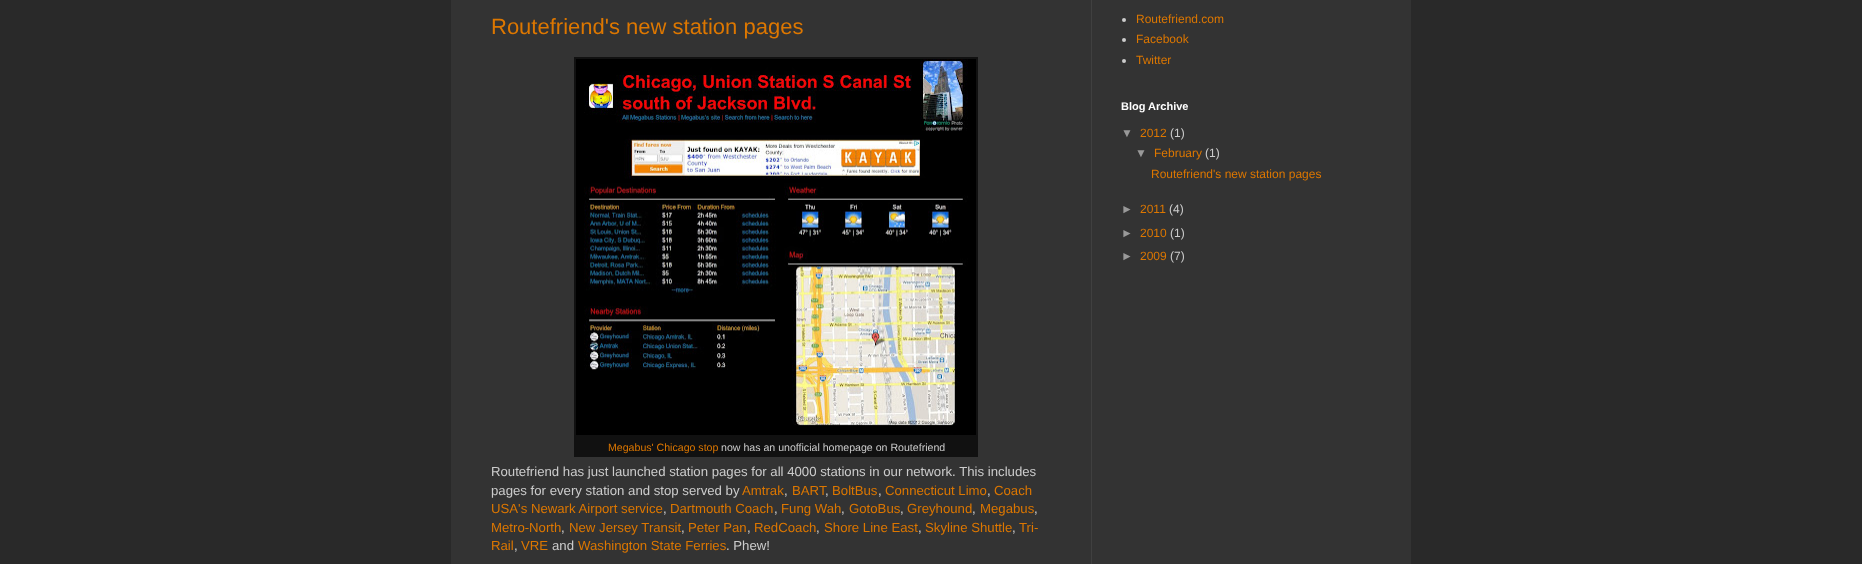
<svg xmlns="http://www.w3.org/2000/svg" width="1862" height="564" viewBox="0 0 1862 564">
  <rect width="100%" height="100%" fill="rgb(41,41,41)"/>
  <rect x="451" y="0" width="960" height="564" fill="rgb(51,51,51)"/>
  <rect x="1091" y="0" width="1" height="564" fill="rgb(64,64,64)"/>
  <text x="491" y="34" font-family="Liberation Sans" font-size="22" fill="rgb(221,119,0)">Routefriend's new station pages</text>
  <rect x="574" y="57" width="404" height="400" fill="rgb(17,17,17)"/>
  <image x="576" y="59" width="400" height="376" href="pic1.png"/>
  <text x="608" y="451" font-family="Liberation Sans" font-size="10.6" fill="rgb(221,119,0)">Megabus' Chicago stop</text>
  <text x="721" y="451" font-family="Liberation Sans" font-size="10.6" fill="rgb(204,204,204)">now has an unofficial homepage on Routefriend</text>
  <g font-family="Liberation Sans" font-size="13.2" fill="rgb(204,204,204)">
    <text>
      <tspan x="491" y="476">Routefriend has just launched station pages for all 4000 stations in our network. This includes</tspan>
      <tspan x="491" y="495">pages for every station and stop served by</tspan>
    </text>
  </g>
  <text x="742" y="495" font-family="Liberation Sans" font-size="13.2" fill="rgb(221,119,0)">Amtrak</text>
  <text x="784" y="495" font-family="Liberation Sans" font-size="13.2" fill="rgb(204,204,204)">,</text>
  <g font-family="Liberation Sans" font-size="13.2" fill="rgb(221,119,0)">
    <text x="792" y="495">BART</text>
    <text x="832" y="495">BoltBus</text>
    <text x="885" y="495">Connecticut Limo</text>
    <text x="994" y="495">Coach</text>
  </g>
  <g font-family="Liberation Sans" font-size="13.2" fill="rgb(204,204,204)">
    <text x="825" y="495">,</text>
    <text x="878" y="495">,</text>
    <text x="987" y="495">,</text>
  </g>
  <text x="491" y="513" font-family="Liberation Sans" font-size="13.2" fill="rgb(221,119,0)">USA's Newark Airport service</text>
  <text x="663" y="513" font-family="Liberation Sans" font-size="13.2" fill="rgb(204,204,204)">,</text>
  <text x="670" y="513" font-family="Liberation Sans" font-size="13.2" fill="rgb(221,119,0)">Dartmouth Coach</text>
  <text x="774" y="513" font-family="Liberation Sans" font-size="13.2" fill="rgb(204,204,204)">,</text>
  <text x="781" y="513" font-family="Liberation Sans" font-size="13.2" fill="rgb(221,119,0)">Fung Wah</text>
  <text x="841" y="513" font-family="Liberation Sans" font-size="13.2" fill="rgb(204,204,204)">,</text>
  <text x="849" y="513" font-family="Liberation Sans" font-size="13.2" fill="rgb(221,119,0)">GotoBus</text>
  <text x="900" y="513" font-family="Liberation Sans" font-size="13.2" fill="rgb(204,204,204)">,</text>
  <text x="907" y="513" font-family="Liberation Sans" font-size="13.2" fill="rgb(221,119,0)">Greyhound</text>
  <text x="972" y="513" font-family="Liberation Sans" font-size="13.2" fill="rgb(204,204,204)">,</text>
  <text x="980" y="513" font-family="Liberation Sans" font-size="13.2" fill="rgb(221,119,0)">Megabus</text>
  <text x="1034" y="513" font-family="Liberation Sans" font-size="13.2" fill="rgb(204,204,204)">,</text>
  <text x="491" y="532" font-family="Liberation Sans" font-size="13.2" fill="rgb(221,119,0)">Metro-North</text>
  <text x="561" y="532" font-family="Liberation Sans" font-size="13.2" fill="rgb(204,204,204)">,</text>
  <text x="569" y="532" font-family="Liberation Sans" font-size="13.2" fill="rgb(221,119,0)">New Jersey Transit</text>
  <text x="681" y="532" font-family="Liberation Sans" font-size="13.2" fill="rgb(204,204,204)">,</text>
  <text x="688" y="532" font-family="Liberation Sans" font-size="13.2" fill="rgb(221,119,0)">Peter Pan</text>
  <text x="747" y="532" font-family="Liberation Sans" font-size="13.2" fill="rgb(204,204,204)">,</text>
  <text x="754" y="532" font-family="Liberation Sans" font-size="13.2" fill="rgb(221,119,0)">RedCoach</text>
  <text x="816" y="532" font-family="Liberation Sans" font-size="13.2" fill="rgb(204,204,204)">,</text>
  <text x="824" y="532" font-family="Liberation Sans" font-size="13.2" fill="rgb(221,119,0)">Shore Line East</text>
  <text x="918" y="532" font-family="Liberation Sans" font-size="13.2" fill="rgb(204,204,204)">,</text>
  <text x="925" y="532" font-family="Liberation Sans" font-size="13.2" fill="rgb(221,119,0)">Skyline Shuttle</text>
  <text x="1012" y="532" font-family="Liberation Sans" font-size="13.2" fill="rgb(204,204,204)">,</text>
  <g font-family="Liberation Sans" font-size="13.2" fill="rgb(221,119,0)">
    <text x="1019" y="532">Tri-</text>
    <text x="491" y="550">Rail</text>
  </g>
  <text x="514" y="550" font-family="Liberation Sans" font-size="13.2" fill="rgb(204,204,204)">,</text>
  <text x="521" y="550" font-family="Liberation Sans" font-size="13.2" fill="rgb(221,119,0)">VRE</text>
  <text x="552" y="550" font-family="Liberation Sans" font-size="13.2" fill="rgb(204,204,204)">and</text>
  <text x="578" y="550" font-family="Liberation Sans" font-size="13.2" fill="rgb(221,119,0)">Washington State Ferries</text>
  <text x="726" y="550" font-family="Liberation Sans" font-size="13.2" fill="rgb(204,204,204)">. Phew!</text>
  <circle cx="1124" cy="20" r="2" fill="rgb(204,204,204)"/>
  <text x="1136" y="23" font-family="Liberation Sans" font-size="12" fill="rgb(221,119,0)">Routefriend.com</text>
  <circle cx="1124" cy="40" r="2" fill="rgb(204,204,204)"/>
  <text x="1136" y="43" font-family="Liberation Sans" font-size="12" fill="rgb(221,119,0)">Facebook</text>
  <circle cx="1124" cy="61" r="2" fill="rgb(204,204,204)"/>
  <text x="1136" y="64" font-family="Liberation Sans" font-size="12" fill="rgb(221,119,0)">Twitter</text>
  <text x="1121" y="110" font-family="Liberation Sans" font-size="11" font-weight="bold" fill="rgb(255,255,255)">Blog Archive</text>
  <text x="1121" y="137" font-family="Liberation Sans" font-size="12" fill="rgb(153,153,153)">▼</text>
  <text x="1140" y="137" font-family="Liberation Sans" font-size="12" fill="rgb(221,119,0)">2012</text>
  <text x="1170" y="137" font-family="Liberation Sans" font-size="12" fill="rgb(204,204,204)">(1)</text>
  <text x="1135" y="157" font-family="Liberation Sans" font-size="12" fill="rgb(153,153,153)">▼</text>
  <text x="1154" y="157" font-family="Liberation Sans" font-size="12" fill="rgb(221,119,0)">February</text>
  <text x="1205" y="157" font-family="Liberation Sans" font-size="12" fill="rgb(204,204,204)">(1)</text>
  <text x="1151" y="178" font-family="Liberation Sans" font-size="12" fill="rgb(221,119,0)">Routefriend's new station pages</text>
  <text x="1121" y="213" font-family="Liberation Sans" font-size="12" fill="rgb(153,153,153)">►</text>
  <text x="1140" y="213" font-family="Liberation Sans" font-size="12" fill="rgb(221,119,0)">2011</text>
  <text x="1169" y="213" font-family="Liberation Sans" font-size="12" fill="rgb(204,204,204)">(4)</text>
  <text x="1121" y="237" font-family="Liberation Sans" font-size="12" fill="rgb(153,153,153)">►</text>
  <text x="1140" y="237" font-family="Liberation Sans" font-size="12" fill="rgb(221,119,0)">2010</text>
  <text x="1170" y="237" font-family="Liberation Sans" font-size="12" fill="rgb(204,204,204)">(1)</text>
  <text x="1121" y="260" font-family="Liberation Sans" font-size="12" fill="rgb(153,153,153)">►</text>
  <text x="1140" y="260" font-family="Liberation Sans" font-size="12" fill="rgb(221,119,0)">2009</text>
  <text x="1170" y="260" font-family="Liberation Sans" font-size="12" fill="rgb(204,204,204)">(7)</text>
</svg>
